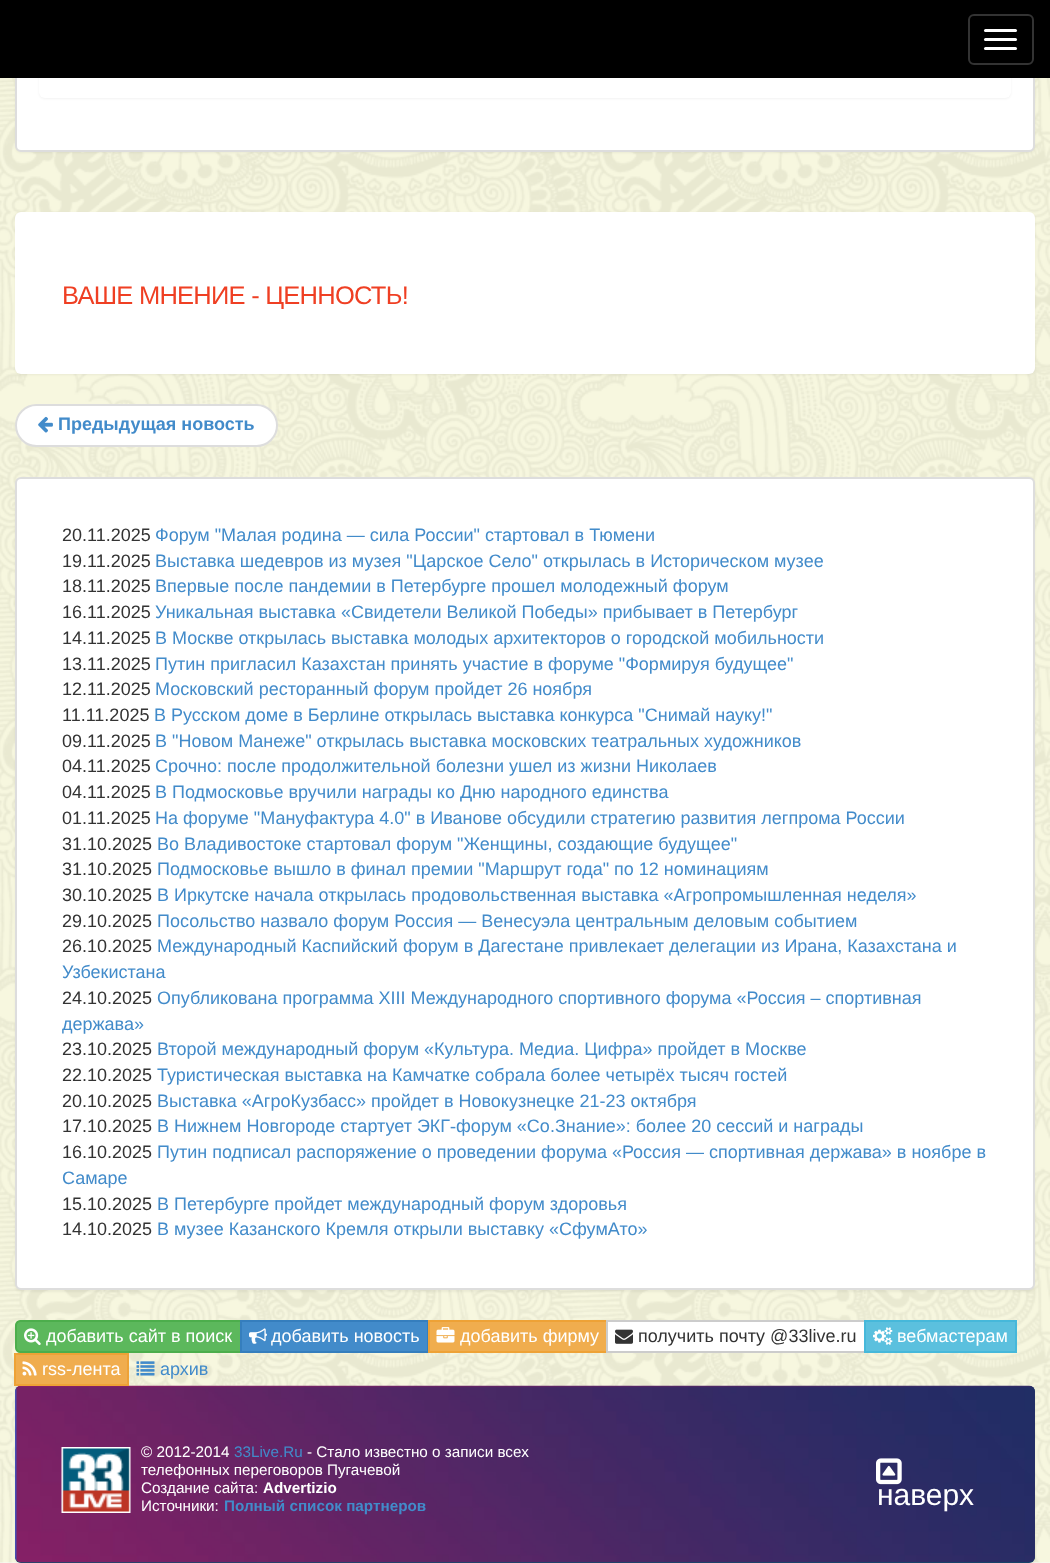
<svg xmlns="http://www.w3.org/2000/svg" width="1050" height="1563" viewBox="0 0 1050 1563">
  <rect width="100%" height="100%" fill="rgb(248,248,248)"/>
  <image x="0" y="78" width="1050" height="1485" href="pic1.png"/>
  <rect x="15" y="-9" width="1020" height="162" rx="6" fill="rgba(0,0,0,0.05)" filter="blur(1px)"/>
  <rect x="16" y="-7" width="1018" height="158" rx="5" fill="rgb(255,255,255)" stroke="rgb(221,221,221)" stroke-width="2"/>
  <rect x="39" y="6" width="972" height="93" rx="6" fill="rgba(0,0,0,0.05)" filter="blur(1px)"/>
  <rect x="39" y="5" width="972" height="93" rx="6" fill="rgb(255,255,255)"/>
  <rect x="0" y="0" width="1050" height="78" fill="rgb(0,0,0)"/>
  <rect x="969" y="15" width="64" height="49" rx="5" fill="none" stroke="rgb(51,51,51)" stroke-width="2"/>
  <rect x="984" y="29" width="33" height="3" rx="1.5" fill="rgb(255,255,255)"/>
  <rect x="984" y="38" width="33" height="3" rx="1.5" fill="rgb(255,255,255)"/>
  <rect x="984" y="47" width="33" height="3" rx="1.5" fill="rgb(255,255,255)"/>
  <rect x="15" y="213" width="1020" height="162" rx="6" fill="rgba(0,0,0,0.05)" filter="blur(1px)"/>
  <rect x="15" y="212" width="1020" height="162" rx="6" fill="rgb(255,255,255)"/>
  <text x="62" y="304" font-family="Liberation Sans" font-size="25.5" letter-spacing="-0.75" fill="rgb(239,63,35)">ВАШЕ МНЕНИЕ - ЦЕННОСТЬ!</text>
  <rect x="16" y="405" width="261" height="41" rx="20.5" fill="rgb(255,255,255)" stroke="rgb(221,221,221)" stroke-width="2"/>
  <image x="38" y="416" width="15" height="17" href="pic2.png"/>
  <text x="58" y="430" font-family="Liberation Sans" font-size="18" font-weight="bold" fill="rgb(66,139,202)">Предыдущая новость</text>
  <rect x="15" y="479" width="1020" height="813" rx="6" fill="rgba(0,0,0,0.05)" filter="blur(1px)"/>
  <rect x="16" y="478" width="1018" height="811" rx="5" fill="rgb(255,255,255)" stroke="rgb(221,221,221)" stroke-width="2"/>
  <text x="62" y="541" font-family="Liberation Sans" font-size="18" fill="rgb(51,51,51)">20.11.2025</text>
  <text x="155" y="541" font-family="Liberation Sans" font-size="18" fill="rgb(66,139,202)">Форум "Малая родина — сила России" стартовал в Тюмени</text>
  <text x="62" y="567" font-family="Liberation Sans" font-size="18" fill="rgb(51,51,51)">19.11.2025</text>
  <text x="155" y="567" font-family="Liberation Sans" font-size="18" fill="rgb(66,139,202)">Выставка шедевров из музея "Царское Село" открылась в Историческом музее</text>
  <text x="62" y="592" font-family="Liberation Sans" font-size="18" fill="rgb(51,51,51)">18.11.2025</text>
  <text x="155" y="592" font-family="Liberation Sans" font-size="18" fill="rgb(66,139,202)">Впервые после пандемии в Петербурге прошел молодежный форум</text>
  <text x="62" y="618" font-family="Liberation Sans" font-size="18" fill="rgb(51,51,51)">16.11.2025</text>
  <text x="155" y="618" font-family="Liberation Sans" font-size="18" fill="rgb(66,139,202)">Уникальная выставка «Свидетели Великой Победы» прибывает в Петербург</text>
  <text x="62" y="644" font-family="Liberation Sans" font-size="18" fill="rgb(51,51,51)">14.11.2025</text>
  <text x="155" y="644" font-family="Liberation Sans" font-size="18" fill="rgb(66,139,202)">В Москве открылась выставка молодых архитекторов о городской мобильности</text>
  <text x="62" y="670" font-family="Liberation Sans" font-size="18" fill="rgb(51,51,51)">13.11.2025</text>
  <text x="155" y="670" font-family="Liberation Sans" font-size="18" fill="rgb(66,139,202)">Путин пригласил Казахстан принять участие в форуме "Формируя будущее"</text>
  <text x="62" y="695" font-family="Liberation Sans" font-size="18" fill="rgb(51,51,51)">12.11.2025</text>
  <text x="155" y="695" font-family="Liberation Sans" font-size="18" fill="rgb(66,139,202)">Московский ресторанный форум пройдет 26 ноября</text>
  <text x="62" y="721" font-family="Liberation Sans" font-size="18" fill="rgb(51,51,51)">11.11.2025</text>
  <text x="154" y="721" font-family="Liberation Sans" font-size="18" fill="rgb(66,139,202)">В Русском доме в Берлине открылась выставка конкурса "Снимай науку!"</text>
  <text x="62" y="747" font-family="Liberation Sans" font-size="18" fill="rgb(51,51,51)">09.11.2025</text>
  <text x="155" y="747" font-family="Liberation Sans" font-size="18" fill="rgb(66,139,202)">В "Новом Манеже" открылась выставка московских театральных художников</text>
  <text x="62" y="772" font-family="Liberation Sans" font-size="18" fill="rgb(51,51,51)">04.11.2025</text>
  <text x="155" y="772" font-family="Liberation Sans" font-size="18" fill="rgb(66,139,202)">Срочно: после продолжительной болезни ушел из жизни Николаев</text>
  <text x="62" y="798" font-family="Liberation Sans" font-size="18" fill="rgb(51,51,51)">04.11.2025</text>
  <text x="155" y="798" font-family="Liberation Sans" font-size="18" fill="rgb(66,139,202)">В Подмосковье вручили награды ко Дню народного единства</text>
  <text x="62" y="824" font-family="Liberation Sans" font-size="18" fill="rgb(51,51,51)">01.11.2025</text>
  <text x="155" y="824" font-family="Liberation Sans" font-size="18" fill="rgb(66,139,202)">На форуме "Мануфактура 4.0" в Иванове обсудили стратегию развития легпрома России</text>
  <text x="62" y="850" font-family="Liberation Sans" font-size="18" fill="rgb(51,51,51)">31.10.2025</text>
  <text x="157" y="850" font-family="Liberation Sans" font-size="18" fill="rgb(66,139,202)">Во Владивостоке стартовал форум "Женщины, создающие будущее"</text>
  <text x="62" y="875" font-family="Liberation Sans" font-size="18" fill="rgb(51,51,51)">31.10.2025</text>
  <text x="157" y="875" font-family="Liberation Sans" font-size="18" fill="rgb(66,139,202)">Подмосковье вышло в финал премии "Маршрут года" по 12 номинациям</text>
  <text x="62" y="901" font-family="Liberation Sans" font-size="18" fill="rgb(51,51,51)">30.10.2025</text>
  <text x="157" y="901" font-family="Liberation Sans" font-size="18" fill="rgb(66,139,202)">В Иркутске начала открылась продовольственная выставка «Агропромышленная неделя»</text>
  <text x="62" y="927" font-family="Liberation Sans" font-size="18" fill="rgb(51,51,51)">29.10.2025</text>
  <text x="157" y="927" font-family="Liberation Sans" font-size="18" fill="rgb(66,139,202)">Посольство назвало форум Россия — Венесуэла центральным деловым событием</text>
  <text x="62" y="952" font-family="Liberation Sans" font-size="18" fill="rgb(51,51,51)">26.10.2025</text>
  <g font-family="Liberation Sans" font-size="18" fill="rgb(66,139,202)">
    <text x="157" y="952">Международный Каспийский форум в Дагестане привлекает делегации из Ирана, Казахстана и</text>
    <text x="62" y="978">Узбекистана</text>
  </g>
  <text x="62" y="1004" font-family="Liberation Sans" font-size="18" fill="rgb(51,51,51)">24.10.2025</text>
  <g font-family="Liberation Sans" font-size="18" fill="rgb(66,139,202)">
    <text x="157" y="1004">Опубликована программа XIII Международного спортивного форума «Россия – спортивная</text>
    <text x="62" y="1030">держава»</text>
  </g>
  <text x="62" y="1055" font-family="Liberation Sans" font-size="18" fill="rgb(51,51,51)">23.10.2025</text>
  <text x="157" y="1055" font-family="Liberation Sans" font-size="18" fill="rgb(66,139,202)">Второй международный форум «Культура. Медиа. Цифра» пройдет в Москве</text>
  <text x="62" y="1081" font-family="Liberation Sans" font-size="18" fill="rgb(51,51,51)">22.10.2025</text>
  <text x="157" y="1081" font-family="Liberation Sans" font-size="18" fill="rgb(66,139,202)">Туристическая выставка на Камчатке собрала более четырёх тысяч гостей</text>
  <text x="62" y="1107" font-family="Liberation Sans" font-size="18" fill="rgb(51,51,51)">20.10.2025</text>
  <text x="157" y="1107" font-family="Liberation Sans" font-size="18" fill="rgb(66,139,202)">Выставка «АгроКузбасс» пройдет в Новокузнецке 21-23 октября</text>
  <text x="62" y="1132" font-family="Liberation Sans" font-size="18" fill="rgb(51,51,51)">17.10.2025</text>
  <text x="157" y="1132" font-family="Liberation Sans" font-size="18" fill="rgb(66,139,202)">В Нижнем Новгороде стартует ЭКГ‑форум «Со.Знание»: более 20 сессий и награды</text>
  <text x="62" y="1158" font-family="Liberation Sans" font-size="18" fill="rgb(51,51,51)">16.10.2025</text>
  <g font-family="Liberation Sans" font-size="18" fill="rgb(66,139,202)">
    <text x="157" y="1158">Путин подписал распоряжение о проведении форума «Россия — спортивная держава» в ноябре в</text>
    <text x="62" y="1184">Самаре</text>
  </g>
  <text x="62" y="1210" font-family="Liberation Sans" font-size="18" fill="rgb(51,51,51)">15.10.2025</text>
  <text x="157" y="1210" font-family="Liberation Sans" font-size="18" fill="rgb(66,139,202)">В Петербурге пройдет международный форум здоровья</text>
  <text x="62" y="1235" font-family="Liberation Sans" font-size="18" fill="rgb(51,51,51)">14.10.2025</text>
  <text x="157" y="1235" font-family="Liberation Sans" font-size="18" fill="rgb(66,139,202)">В музее Казанского Кремля открыли выставку «СфумАто»</text>
  <path d="M20 1321H241V1352H20C18 1352 16 1350 16 1348V1325C16 1323 18 1321 20 1321Z" fill="rgb(92,184,92)" stroke="rgb(76,174,76)" stroke-width="2"/>
  <image x="24" y="1328" width="17" height="18" href="pic3.png"/>
  <text x="46" y="1342" font-family="Liberation Sans" font-size="18" fill="rgb(255,255,255)">добавить сайт в поиск</text>
  <rect x="241" y="1321" width="187" height="31" fill="rgb(66,139,202)" stroke="rgb(53,126,189)" stroke-width="2"/>
  <image x="249" y="1328" width="18" height="16" href="pic4.png"/>
  <text x="271" y="1342" font-family="Liberation Sans" font-size="18" fill="rgb(255,255,255)">добавить новость</text>
  <rect x="429" y="1321" width="178" height="31" fill="rgb(240,173,78)" stroke="rgb(238,162,54)" stroke-width="2"/>
  <image x="436" y="1327" width="19" height="16" href="pic5.png"/>
  <text x="460" y="1342" font-family="Liberation Sans" font-size="18" fill="rgb(255,255,255)">добавить фирму</text>
  <rect x="607" y="1321" width="258" height="31" fill="rgb(255,255,255)" stroke="rgb(204,204,204)" stroke-width="2"/>
  <image x="615" y="1329" width="18" height="15" href="pic6.png"/>
  <text x="638" y="1342" font-family="Liberation Sans" font-size="18" fill="rgb(51,51,51)">получить почту @33live.ru</text>
  <rect x="865" y="1321" width="151" height="31" fill="rgb(91,192,222)" stroke="rgb(70,184,218)" stroke-width="2"/>
  <image x="873" y="1327" width="20" height="18" href="pic7.png"/>
  <text x="897" y="1342" font-family="Liberation Sans" font-size="18" fill="rgb(255,255,255)">вебмастерам</text>
  <rect x="15" y="1388" width="1020" height="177" rx="6" fill="rgba(0,0,0,0.05)" filter="blur(1px)"/>
  <rect x="15" y="1386" width="1020" height="177" rx="6" fill="rgb(16,75,107)"/>
  <image x="15" y="1385" width="1020" height="178" href="pic10.png"/>
  <rect x="15" y="1354" width="113" height="31" fill="rgb(240,173,78)" stroke="rgb(238,162,54)" stroke-width="2"/>
  <image x="22" y="1361" width="15" height="15" href="pic8.png"/>
  <text x="42" y="1375" font-family="Liberation Sans" font-size="18" fill="rgb(255,255,255)">rss-лента</text>
  <image x="136" y="1361" width="19" height="15" href="pic9.png"/>
  <text x="160" y="1375" font-family="Liberation Sans" font-size="18" fill="rgb(66,139,202)">архив</text>
  <image x="61" y="1447" width="70" height="66" href="pic11.png"/>
  <text x="141" y="1457" font-family="Liberation Sans" font-size="15.25" fill="rgb(255,255,255)">© 2012-2014</text>
  <text x="234" y="1457" font-family="Liberation Sans" font-size="15.25" fill="rgb(66,139,202)">33Live.Ru</text>
  <g font-family="Liberation Sans" font-size="15.25" fill="rgb(255,255,255)">
    <text x="307" y="1457">- Стало известно о записи всех</text>
    <text>
      <tspan x="141" y="1475">телефонных переговоров Пугачевой</tspan>
      <tspan x="141" y="1493">Создание сайта:</tspan>
    </text>
  </g>
  <text x="263" y="1493" font-family="Liberation Sans" font-size="15.25" font-weight="bold" fill="rgb(255,255,255)">Advertizio</text>
  <text x="141" y="1511" font-family="Liberation Sans" font-size="15.25" fill="rgb(255,255,255)">Источники:</text>
  <text x="224" y="1511" font-family="Liberation Sans" font-size="15.25" font-weight="bold" fill="rgb(66,139,202)">Полный список партнеров</text>
  <image x="876" y="1458" width="26" height="27" href="pic12.png"/>
  <text x="877" y="1505" font-family="Liberation Sans" font-size="30" fill="rgb(255,255,255)">наверх</text>
</svg>
